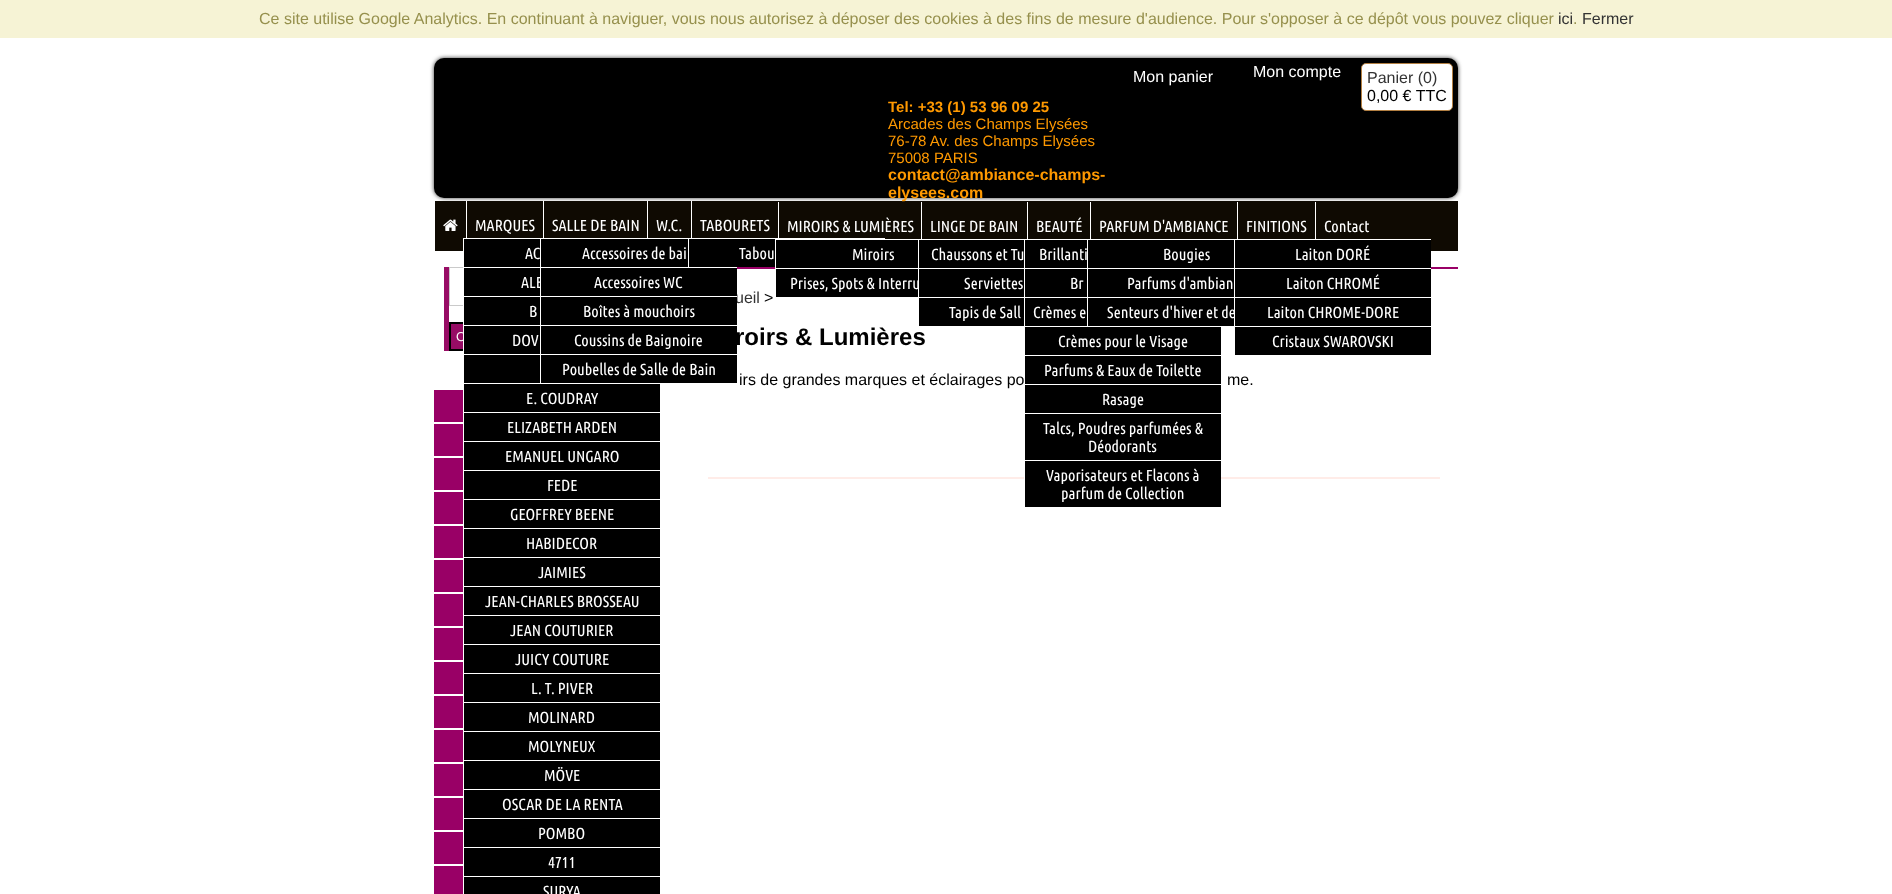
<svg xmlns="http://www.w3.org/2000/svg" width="1892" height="894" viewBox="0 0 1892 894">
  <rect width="100%" height="100%" fill="rgb(255,255,255)"/>
  <rect x="0" y="0" width="1892" height="38" fill="rgb(246,243,213)"/>
  <text x="259" y="24" font-family="Liberation Sans" font-size="16" fill="rgb(150,144,77)">Ce site utilise Google Analytics. En continuant à naviguer, vous nous autorisez à déposer des cookies à des fins de mesure d'audience. Pour s'opposer à ce dépôt vous pouvez cliquer</text>
  <text x="1558" y="24" font-family="Liberation Sans" font-size="16" fill="rgb(51,51,51)">ici</text>
  <text x="1573" y="24" font-family="Liberation Sans" font-size="16" fill="rgb(150,144,77)">.</text>
  <text x="1582" y="24" font-family="Liberation Sans" font-size="16" fill="rgb(51,51,51)">Fermer</text>
  <rect x="434" y="58" width="1024" height="140" rx="10" fill="rgb(51,51,51)" filter="blur(2px)"/>
  <rect x="434" y="58" width="1024" height="140" rx="10" fill="rgb(0,0,0)"/>
  <g font-family="Liberation Sans" font-size="16" fill="rgb(255,255,255)">
    <text x="1133" y="82">Mon panier</text>
    <text x="1253" y="77">Mon compte</text>
  </g>
  <rect x="1361.5" y="63.5" width="91" height="47" rx="4.5" fill="rgb(255,255,255)" stroke="rgb(178,127,66)"/>
  <text x="1367" y="83" font-family="Liberation Sans" font-size="16" fill="rgb(51,51,51)">Panier (0)</text>
  <text x="1367" y="101" font-family="Liberation Sans" font-size="16" fill="rgb(0,0,0)">0,00 € TTC</text>
  <text x="888" y="112" font-family="Liberation Sans" font-size="15" font-weight="bold" fill="rgb(255,153,0)">Tel: +33 (1) 53 96 09 25</text>
  <g font-family="Liberation Sans" font-size="15" fill="rgb(255,153,0)">
    <text>
      <tspan x="888" y="129">Arcades des Champs Elysées</tspan>
      <tspan x="888" y="146">76-78 Av. des Champs Elysées</tspan>
      <tspan x="888" y="163">75008 PARIS</tspan>
    </text>
  </g>
  <text x="888" y="180" font-family="Liberation Sans" font-size="16" font-weight="bold" fill="rgb(255,153,0)">contact@ambiance-champs-</text>
  <rect x="435" y="201" width="1023" height="50" fill="rgb(15,10,2)"/>
  <text x="888" y="198" font-family="Liberation Sans" font-size="16" font-weight="bold" fill="rgb(255,153,0)">elysees.com</text>
  <image x="443" y="219" width="15" height="12" href="pic1.png"/>
  <rect x="466" y="201" width="1" height="37" fill="rgb(255,255,255)"/>
  <text x="475" y="231" font-family="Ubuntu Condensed" font-size="16" fill="rgb(255,255,255)">MARQUES</text>
  <rect x="464" y="239" width="76" height="28" fill="rgb(0,0,0)"/>
  <rect x="463" y="238" width="422" height="1" fill="rgb(255,255,255)"/>
  <rect x="463" y="238" width="1" height="13" fill="rgb(255,255,255)"/>
  <text x="525" y="259" font-family="Ubuntu Condensed" font-size="16" fill="rgb(255,255,255)">AC</text>
  <rect x="449.5" y="267.5" width="199" height="38" fill="none" stroke="rgb(202,202,202)"/>
  <rect x="464" y="268" width="76" height="28" fill="rgb(0,0,0)"/>
  <rect x="463" y="267" width="186" height="1" fill="rgb(255,255,255)"/>
  <text x="521" y="288" font-family="Ubuntu Condensed" font-size="16" fill="rgb(255,255,255)">ALE</text>
  <rect x="451" y="324" width="12" height="25" fill="rgb(151,12,101)"/>
  <rect x="450" y="323" width="28" height="27" fill="none" stroke="rgb(0,0,0)" stroke-width="2"/>
  <rect x="464" y="297" width="76" height="28" fill="rgb(0,0,0)"/>
  <rect x="463" y="305" width="1" height="20" fill="rgb(255,255,255)"/>
  <text x="529" y="317" font-family="Ubuntu Condensed" font-size="16" fill="rgb(255,255,255)">B</text>
  <text x="456" y="341" font-family="Liberation Sans" font-size="13" fill="rgb(255,255,255)">O</text>
  <rect x="464" y="326" width="76" height="28" fill="rgb(0,0,0)"/>
  <rect x="477" y="325" width="2" height="1" fill="rgb(255,255,255)"/>
  <rect x="463" y="349" width="1" height="5" fill="rgb(255,255,255)"/>
  <text x="512" y="346" font-family="Ubuntu Condensed" font-size="16" fill="rgb(255,255,255)">DOV</text>
  <rect x="464" y="355" width="76" height="28" fill="rgb(0,0,0)"/>
  <rect x="464" y="384" width="196" height="28" fill="rgb(0,0,0)"/>
  <text x="526" y="404" font-family="Ubuntu Condensed" font-size="16" fill="rgb(255,255,255)">E. COUDRAY</text>
  <rect x="464" y="413" width="196" height="28" fill="rgb(0,0,0)"/>
  <text x="507" y="433" font-family="Ubuntu Condensed" font-size="16" fill="rgb(255,255,255)">ELIZABETH ARDEN</text>
  <rect x="464" y="442" width="196" height="28" fill="rgb(0,0,0)"/>
  <text x="505" y="462" font-family="Ubuntu Condensed" font-size="16" fill="rgb(255,255,255)">EMANUEL UNGARO</text>
  <rect x="464" y="471" width="196" height="28" fill="rgb(0,0,0)"/>
  <text x="547" y="491" font-family="Ubuntu Condensed" font-size="16" fill="rgb(255,255,255)">FEDE</text>
  <rect x="464" y="500" width="196" height="28" fill="rgb(0,0,0)"/>
  <text x="510" y="520" font-family="Ubuntu Condensed" font-size="16" fill="rgb(255,255,255)">GEOFFREY BEENE</text>
  <rect x="464" y="529" width="196" height="28" fill="rgb(0,0,0)"/>
  <text x="526" y="549" font-family="Ubuntu Condensed" font-size="16" fill="rgb(255,255,255)">HABIDECOR</text>
  <rect x="464" y="558" width="196" height="28" fill="rgb(0,0,0)"/>
  <text x="538" y="578" font-family="Ubuntu Condensed" font-size="16" fill="rgb(255,255,255)">JAIMIES</text>
  <rect x="464" y="587" width="196" height="28" fill="rgb(0,0,0)"/>
  <text x="485" y="607" font-family="Ubuntu Condensed" font-size="16" fill="rgb(255,255,255)">JEAN-CHARLES BROSSEAU</text>
  <rect x="464" y="616" width="196" height="28" fill="rgb(0,0,0)"/>
  <text x="510" y="636" font-family="Ubuntu Condensed" font-size="16" fill="rgb(255,255,255)">JEAN COUTURIER</text>
  <rect x="464" y="645" width="196" height="28" fill="rgb(0,0,0)"/>
  <text x="515" y="665" font-family="Ubuntu Condensed" font-size="16" fill="rgb(255,255,255)">JUICY COUTURE</text>
  <rect x="464" y="674" width="196" height="28" fill="rgb(0,0,0)"/>
  <text x="531" y="694" font-family="Ubuntu Condensed" font-size="16" fill="rgb(255,255,255)">L. T. PIVER</text>
  <rect x="464" y="703" width="196" height="28" fill="rgb(0,0,0)"/>
  <text x="528" y="723" font-family="Ubuntu Condensed" font-size="16" fill="rgb(255,255,255)">MOLINARD</text>
  <rect x="464" y="732" width="196" height="28" fill="rgb(0,0,0)"/>
  <text x="528" y="752" font-family="Ubuntu Condensed" font-size="16" fill="rgb(255,255,255)">MOLYNEUX</text>
  <rect x="464" y="761" width="196" height="28" fill="rgb(0,0,0)"/>
  <text x="544" y="781" font-family="Ubuntu Condensed" font-size="16" fill="rgb(255,255,255)">MÖVE</text>
  <rect x="464" y="790" width="196" height="28" fill="rgb(0,0,0)"/>
  <text x="502" y="810" font-family="Ubuntu Condensed" font-size="16" fill="rgb(255,255,255)">OSCAR DE LA RENTA</text>
  <rect x="464" y="819" width="196" height="28" fill="rgb(0,0,0)"/>
  <text x="538" y="839" font-family="Ubuntu Condensed" font-size="16" fill="rgb(255,255,255)">POMBO</text>
  <rect x="464" y="848" width="196" height="28" fill="rgb(0,0,0)"/>
  <text x="548" y="868" font-family="Ubuntu Condensed" font-size="16" fill="rgb(255,255,255)">4711</text>
  <rect x="464" y="877" width="196" height="17" fill="rgb(0,0,0)"/>
  <text x="543" y="897" font-family="Ubuntu Condensed" font-size="16" fill="rgb(255,255,255)">SURYA</text>
  <rect x="778" y="202" width="1" height="36" fill="rgb(255,255,255)"/>
  <text x="787" y="232" font-family="Ubuntu Condensed" font-size="16" fill="rgb(255,255,255)">MIROIRS &amp; LUMIÈRES</text>
  <rect x="737" y="267" width="721" height="2" fill="rgb(153,0,102)"/>
  <rect x="776" y="240" width="142" height="28" fill="rgb(0,0,0)"/>
  <rect x="775" y="239" width="656" height="1" fill="rgb(255,255,255)"/>
  <rect x="775" y="239" width="1" height="29" fill="rgb(255,255,255)"/>
  <text x="852" y="260" font-family="Ubuntu Condensed" font-size="16" fill="rgb(255,255,255)">Miroirs</text>
  <rect x="776" y="269" width="142" height="28" fill="rgb(0,0,0)"/>
  <rect x="775" y="268" width="656" height="1" fill="rgb(255,255,255)"/>
  <text x="790" y="289" font-family="Ubuntu Condensed" font-size="16" fill="rgb(255,255,255)">Prises, Spots &amp; Interru</text>
  <rect x="1027" y="202" width="1" height="37" fill="rgb(255,255,255)"/>
  <text x="1036" y="232" font-family="Ubuntu Condensed" font-size="16" fill="rgb(255,255,255)">BEAUTÉ</text>
  <rect x="1025" y="240" width="62" height="28" fill="rgb(0,0,0)"/>
  <rect x="1024" y="239" width="1" height="29" fill="rgb(255,255,255)"/>
  <text x="1039" y="260" font-family="Ubuntu Condensed" font-size="16" fill="rgb(255,255,255)">Brillanti</text>
  <rect x="1025" y="269" width="62" height="28" fill="rgb(0,0,0)"/>
  <text x="1070" y="289" font-family="Ubuntu Condensed" font-size="16" fill="rgb(255,255,255)">Br</text>
  <rect x="1025" y="298" width="62" height="28" fill="rgb(0,0,0)"/>
  <text x="1033" y="318" font-family="Ubuntu Condensed" font-size="16" fill="rgb(255,255,255)">Crèmes e</text>
  <rect x="1025" y="327" width="196" height="28" fill="rgb(0,0,0)"/>
  <text x="1058" y="347" font-family="Ubuntu Condensed" font-size="16" fill="rgb(255,255,255)">Crèmes pour le Visage</text>
  <rect x="1025" y="356" width="196" height="28" fill="rgb(0,0,0)"/>
  <text x="1044" y="376" font-family="Ubuntu Condensed" font-size="16" fill="rgb(255,255,255)">Parfums &amp; Eaux de Toilette</text>
  <rect x="1025" y="385" width="196" height="28" fill="rgb(0,0,0)"/>
  <text x="1102" y="405" font-family="Ubuntu Condensed" font-size="16" fill="rgb(255,255,255)">Rasage</text>
  <rect x="1025" y="414" width="196" height="46" fill="rgb(0,0,0)"/>
  <g font-family="Ubuntu Condensed" font-size="16" fill="rgb(255,255,255)">
    <text x="1043" y="434">Talcs, Poudres parfumées &amp;</text>
    <text x="1088" y="452">Déodorants</text>
  </g>
  <rect x="708" y="477" width="732" height="2" fill="rgb(255,236,232)"/>
  <rect x="1025" y="461" width="196" height="46" fill="rgb(0,0,0)"/>
  <rect x="1024" y="477" width="1" height="2" fill="rgb(255,255,255)"/>
  <g font-family="Ubuntu Condensed" font-size="16" fill="rgb(255,255,255)">
    <text x="1046" y="481">Vaporisateurs et Flacons à</text>
    <text x="1061" y="499">parfum de Collection</text>
  </g>
  <rect x="543" y="201" width="1" height="37" fill="rgb(255,255,255)"/>
  <text x="552" y="231" font-family="Ubuntu Condensed" font-size="16" fill="rgb(255,255,255)">SALLE DE BAIN</text>
  <rect x="541" y="239" width="147" height="28" fill="rgb(0,0,0)"/>
  <rect x="540" y="238" width="1" height="13" fill="rgb(255,255,255)"/>
  <text x="582" y="259" font-family="Ubuntu Condensed" font-size="16" fill="rgb(255,255,255)">Accessoires de bai</text>
  <text x="735" y="303" font-family="Liberation Sans" font-size="16" fill="rgb(51,51,51)">ueil</text>
  <rect x="541" y="268" width="196" height="28" fill="rgb(0,0,0)"/>
  <text x="594" y="288" font-family="Ubuntu Condensed" font-size="16" fill="rgb(255,255,255)">Accessoires WC</text>
  <rect x="541" y="297" width="196" height="28" fill="rgb(0,0,0)"/>
  <rect x="648" y="296" width="89" height="1" fill="rgb(255,255,255)"/>
  <rect x="540" y="305" width="1" height="1" fill="rgb(255,255,255)"/>
  <text x="583" y="317" font-family="Ubuntu Condensed" font-size="16" fill="rgb(255,255,255)">Boîtes à mouchoirs</text>
  <rect x="541" y="326" width="196" height="28" fill="rgb(0,0,0)"/>
  <text x="574" y="346" font-family="Ubuntu Condensed" font-size="16" fill="rgb(255,255,255)">Coussins de Baignoire</text>
  <rect x="541" y="355" width="196" height="28" fill="rgb(0,0,0)"/>
  <text x="562" y="375" font-family="Ubuntu Condensed" font-size="16" fill="rgb(255,255,255)">Poubelles de Salle de Bain</text>
  <rect x="647" y="201" width="1" height="37" fill="rgb(255,255,255)"/>
  <text x="656" y="231" font-family="Ubuntu Condensed" font-size="16" fill="rgb(255,255,255)">W.C.</text>
  <rect x="691" y="201" width="1" height="37" fill="rgb(255,255,255)"/>
  <text x="700" y="231" font-family="Ubuntu Condensed" font-size="16" fill="rgb(255,255,255)">TABOURETS</text>
  <rect x="689" y="239" width="86" height="28" fill="rgb(0,0,0)"/>
  <rect x="688" y="238" width="1" height="13" fill="rgb(255,255,255)"/>
  <text x="739" y="259" font-family="Ubuntu Condensed" font-size="16" fill="rgb(255,255,255)">Tabou</text>
  <rect x="921" y="202" width="1" height="37" fill="rgb(255,255,255)"/>
  <text x="930" y="232" font-family="Ubuntu Condensed" font-size="16" fill="rgb(255,255,255)">LINGE DE BAIN</text>
  <rect x="919" y="240" width="105" height="28" fill="rgb(0,0,0)"/>
  <rect x="918" y="239" width="1" height="29" fill="rgb(255,255,255)"/>
  <text x="931" y="260" font-family="Ubuntu Condensed" font-size="16" fill="rgb(255,255,255)">Chaussons et Tu</text>
  <rect x="919" y="269" width="105" height="28" fill="rgb(0,0,0)"/>
  <text x="964" y="289" font-family="Ubuntu Condensed" font-size="16" fill="rgb(255,255,255)">Serviettes</text>
  <rect x="919" y="298" width="105" height="28" fill="rgb(0,0,0)"/>
  <text x="949" y="318" font-family="Ubuntu Condensed" font-size="16" fill="rgb(255,255,255)">Tapis de Sall</text>
  <rect x="1090" y="202" width="1" height="37" fill="rgb(255,255,255)"/>
  <text x="1099" y="232" font-family="Ubuntu Condensed" font-size="16" fill="rgb(255,255,255)">PARFUM D'AMBIANCE</text>
  <rect x="1088" y="240" width="146" height="28" fill="rgb(0,0,0)"/>
  <rect x="1087" y="239" width="1" height="29" fill="rgb(255,255,255)"/>
  <text x="1163" y="260" font-family="Ubuntu Condensed" font-size="16" fill="rgb(255,255,255)">Bougies</text>
  <rect x="1088" y="269" width="146" height="28" fill="rgb(0,0,0)"/>
  <text x="1127" y="289" font-family="Ubuntu Condensed" font-size="16" fill="rgb(255,255,255)">Parfums d'ambian</text>
  <rect x="1088" y="298" width="146" height="28" fill="rgb(0,0,0)"/>
  <text x="1107" y="318" font-family="Ubuntu Condensed" font-size="16" fill="rgb(255,255,255)">Senteurs d'hiver et de</text>
  <rect x="1237" y="202" width="1" height="37" fill="rgb(255,255,255)"/>
  <text x="1246" y="232" font-family="Ubuntu Condensed" font-size="16" fill="rgb(255,255,255)">FINITIONS</text>
  <rect x="1235" y="240" width="196" height="28" fill="rgb(0,0,0)"/>
  <rect x="1234" y="239" width="1" height="29" fill="rgb(255,255,255)"/>
  <text x="1295" y="260" font-family="Ubuntu Condensed" font-size="16" fill="rgb(255,255,255)">Laiton DORÉ</text>
  <rect x="1235" y="269" width="196" height="28" fill="rgb(0,0,0)"/>
  <text x="1286" y="289" font-family="Ubuntu Condensed" font-size="16" fill="rgb(255,255,255)">Laiton CHROMÉ</text>
  <rect x="1235" y="298" width="196" height="28" fill="rgb(0,0,0)"/>
  <text x="1267" y="318" font-family="Ubuntu Condensed" font-size="16" fill="rgb(255,255,255)">Laiton CHROME-DORE</text>
  <rect x="1235" y="327" width="196" height="28" fill="rgb(0,0,0)"/>
  <text x="1272" y="347" font-family="Ubuntu Condensed" font-size="16" fill="rgb(255,255,255)">Cristaux SWAROVSKI</text>
  <rect x="1315" y="202" width="1" height="37" fill="rgb(255,255,255)"/>
  <text x="1324" y="232" font-family="Ubuntu Condensed" font-size="16" fill="rgb(255,255,255)">Contact</text>
  <rect x="444" y="267" width="5" height="84" fill="rgb(151,12,101)"/>
  <rect x="434" y="390" width="29" height="32" fill="rgb(153,0,102)"/>
  <rect x="434" y="424" width="29" height="32" fill="rgb(153,0,102)"/>
  <rect x="434" y="458" width="29" height="32" fill="rgb(153,0,102)"/>
  <rect x="434" y="492" width="29" height="32" fill="rgb(153,0,102)"/>
  <rect x="434" y="526" width="29" height="32" fill="rgb(153,0,102)"/>
  <rect x="434" y="560" width="29" height="32" fill="rgb(153,0,102)"/>
  <rect x="434" y="594" width="29" height="32" fill="rgb(153,0,102)"/>
  <rect x="434" y="628" width="29" height="32" fill="rgb(153,0,102)"/>
  <rect x="434" y="662" width="29" height="32" fill="rgb(153,0,102)"/>
  <rect x="434" y="696" width="29" height="32" fill="rgb(153,0,102)"/>
  <rect x="434" y="730" width="29" height="32" fill="rgb(153,0,102)"/>
  <rect x="434" y="764" width="29" height="32" fill="rgb(153,0,102)"/>
  <rect x="434" y="798" width="29" height="32" fill="rgb(153,0,102)"/>
  <rect x="434" y="832" width="29" height="32" fill="rgb(153,0,102)"/>
  <rect x="434" y="866" width="29" height="28" fill="rgb(153,0,102)"/>
  <text x="764" y="303" font-family="Liberation Sans" font-size="16" fill="rgb(0,0,0)">&gt;</text>
  <text x="735" y="345" font-family="Liberation Sans" font-size="24" font-weight="bold" fill="rgb(0,0,0)">roirs &amp; Lumières</text>
  <g font-family="Liberation Sans" font-size="16" fill="rgb(0,0,0)">
    <text x="739" y="385">irs de grandes marques et éclairages po</text>
    <text x="1227" y="385">me.</text>
  </g>
</svg>
